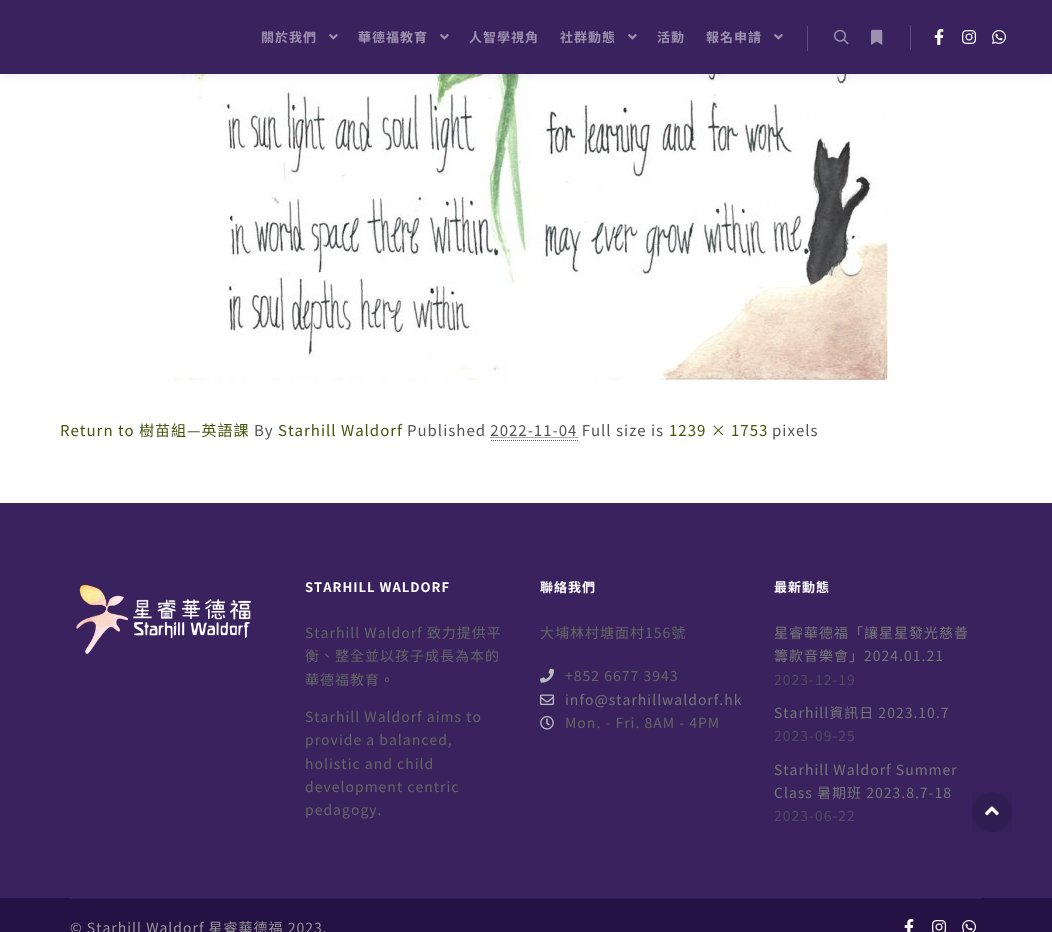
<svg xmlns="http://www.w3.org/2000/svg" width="1052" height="932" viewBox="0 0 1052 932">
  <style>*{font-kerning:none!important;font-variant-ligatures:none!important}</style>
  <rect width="100%" height="100%" fill="rgb(255,255,255)"/>
  <image x="174" y="74" width="714" height="309" href="pic7.png"/>
  <rect x="0" y="0" width="1052" height="74" fill="rgba(0,0,0,0.09)" filter="blur(6px)"/>
  <rect x="0" y="0" width="1052" height="74" fill="rgb(58,34,94)"/>
  <text x="261" y="42" font-family="Noto Sans HK" font-size="13" font-weight="bold" letter-spacing="1" fill="rgb(157,145,175)">關於我們</text>
  <image x="329" y="34" width="9" height="6" href="pic1.png"/>
  <text x="358" y="42" font-family="Noto Sans HK" font-size="13" font-weight="bold" letter-spacing="1" fill="rgb(157,145,175)">華德福教育</text>
  <image x="440" y="34" width="9" height="6" href="pic1.png"/>
  <g font-family="Noto Sans HK" font-size="13" font-weight="bold" letter-spacing="1" fill="rgb(157,145,175)">
    <text x="469" y="42">人智學視角</text>
    <text x="560" y="42">社群動態</text>
  </g>
  <image x="628" y="34" width="9" height="6" href="pic1.png"/>
  <g font-family="Noto Sans HK" font-size="13" font-weight="bold" letter-spacing="1" fill="rgb(157,145,175)">
    <text x="657" y="42">活動</text>
    <text x="706" y="42">報名申請</text>
  </g>
  <image x="774" y="34" width="9" height="6" href="pic1.png"/>
  <rect x="807" y="26" width="1" height="25" fill="rgb(97,78,126)"/>
  <image x="834" y="29" width="15" height="16" href="pic2.png"/>
  <image x="871" y="29" width="12" height="16" href="pic3.png"/>
  <rect x="910" y="25" width="1" height="25" fill="rgb(97,78,126)"/>
  <image x="934" y="29" width="10" height="16" href="pic4.png"/>
  <image x="962" y="30" width="15" height="14" href="pic5.png"/>
  <image x="992" y="30" width="14" height="14" href="pic6.png"/>
  <text x="60" y="436" font-family="Noto Sans HK" font-size="15" letter-spacing="1" fill="rgb(66,87,12)">Return to 樹苗組—英語課</text>
  <text x="254" y="436" font-family="Noto Sans HK" font-size="15" letter-spacing="1" fill="rgb(85,85,85)">By</text>
  <text x="278" y="436" font-family="Noto Sans HK" font-size="15" letter-spacing="1" fill="rgb(66,87,12)">Starhill Waldorf</text>
  <text x="407" y="436" font-family="Noto Sans HK" font-size="15" letter-spacing="1" fill="rgb(85,85,85)">Published 2022-11-04 Full size is</text>
  <path d="M491 440.5H578" fill="none" stroke="rgb(85,85,85)" stroke-dasharray="1 1"/>
  <path d="M490.5 437.5H577.5" fill="none" stroke="rgb(85,85,85)" stroke-dasharray="1 1"/>
  <text x="669" y="436" font-family="Noto Sans HK" font-size="15" letter-spacing="1" fill="rgb(66,87,12)">1239 × 1753</text>
  <text x="772" y="436" font-family="Noto Sans HK" font-size="15" letter-spacing="1" fill="rgb(85,85,85)">pixels</text>
  <rect x="0" y="503" width="1052" height="395" fill="rgb(58,34,94)"/>
  <image x="76" y="584" width="175" height="70" href="pic8.png"/>
  <text x="305" y="592" font-family="Noto Sans HK" font-size="13" font-weight="bold" letter-spacing="1" fill="rgb(255,255,255)">STARHILL WALDORF</text>
  <g font-family="Noto Sans HK" font-size="14" letter-spacing="1" fill="rgb(102,102,102)">
    <text>
      <tspan x="305" y="638">Starhill Waldorf 致力提供平</tspan>
      <tspan x="305" y="661">衡、整全並以孩子成長為本的</tspan>
      <tspan x="305" y="685">華德福教育。</tspan>
    </text>
    <text>
      <tspan x="305" y="722">Starhill Waldorf aims to</tspan>
      <tspan x="305" y="745">provide a balanced,</tspan>
      <tspan x="305" y="769">holistic and child</tspan>
      <tspan x="305" y="792">development centric</tspan>
      <tspan x="305" y="815">pedagogy.</tspan>
    </text>
  </g>
  <text x="540" y="592" font-family="Noto Sans HK" font-size="13" font-weight="bold" letter-spacing="1" fill="rgb(255,255,255)">聯絡我們</text>
  <text x="540" y="638" font-family="Noto Sans HK" font-size="14" letter-spacing="1" fill="rgb(102,102,102)">大埔林村塘面村156號</text>
  <image x="540" y="668" width="14" height="15" href="pic9.png"/>
  <text x="565" y="681" font-family="Noto Sans HK" font-size="14" letter-spacing="1" fill="rgb(102,102,102)">+852 6677 3943</text>
  <image x="540" y="694" width="14" height="11" href="pic10.png"/>
  <text x="565" y="705" font-family="Noto Sans HK" font-size="14" letter-spacing="1" fill="rgb(119,119,119)">info@starhillwaldorf.hk</text>
  <image x="540" y="716" width="14" height="14" href="pic11.png"/>
  <text x="565" y="728" font-family="Noto Sans HK" font-size="14" letter-spacing="1" fill="rgb(102,102,102)">Mon. - Fri. 8AM - 4PM</text>
  <text x="774" y="592" font-family="Noto Sans HK" font-size="13" font-weight="bold" letter-spacing="1" fill="rgb(255,255,255)">最新動態</text>
  <g font-family="Noto Sans HK" font-size="14" letter-spacing="1" fill="rgb(119,119,119)">
    <text>
      <tspan x="774" y="638">星睿華德福「讓星星發光慈善</tspan>
      <tspan x="774" y="661">籌款音樂會」2024.01.21</tspan>
    </text>
  </g>
  <text x="774" y="685" font-family="Noto Sans HK" font-size="14" letter-spacing="1" fill="rgb(84,75,99)">2023-12-19</text>
  <text x="774" y="718" font-family="Noto Sans HK" font-size="14" letter-spacing="1" fill="rgb(119,119,119)">Starhill資訊日 2023.10.7</text>
  <text x="774" y="741" font-family="Noto Sans HK" font-size="14" letter-spacing="1" fill="rgb(84,75,99)">2023-09-25</text>
  <g font-family="Noto Sans HK" font-size="14" letter-spacing="1" fill="rgb(119,119,119)">
    <text>
      <tspan x="774" y="775">Starhill Waldorf Summer</tspan>
      <tspan x="774" y="798">Class 暑期班 2023.8.7-18</tspan>
    </text>
  </g>
  <text x="774" y="821" font-family="Noto Sans HK" font-size="14" letter-spacing="1" fill="rgb(84,75,99)">2023-06-22</text>
  <rect x="0" y="898" width="1052" height="34" fill="rgb(37,17,68)"/>
  <rect x="70" y="898" width="912" height="1" fill="rgb(50,31,79)"/>
  <text x="70" y="933" font-family="Noto Sans HK" font-size="14" letter-spacing="1" fill="rgb(152,152,152)">© Starhill Waldorf 星睿華德福 2023.</text>
  <image x="904" y="919" width="10" height="13" href="pic12.png"/>
  <image x="932" y="920" width="15" height="12" href="pic13.png"/>
  <image x="962" y="920" width="14" height="12" href="pic14.png"/>
  <circle cx="992" cy="812" r="20" fill="rgb(52,31,85)"/>
  <rect x="972" y="792" width="40" height="40" fill="rgba(0,0,0,0.04)"/>
  <image x="985" y="806" width="14" height="10" href="pic15.png"/>
</svg>
